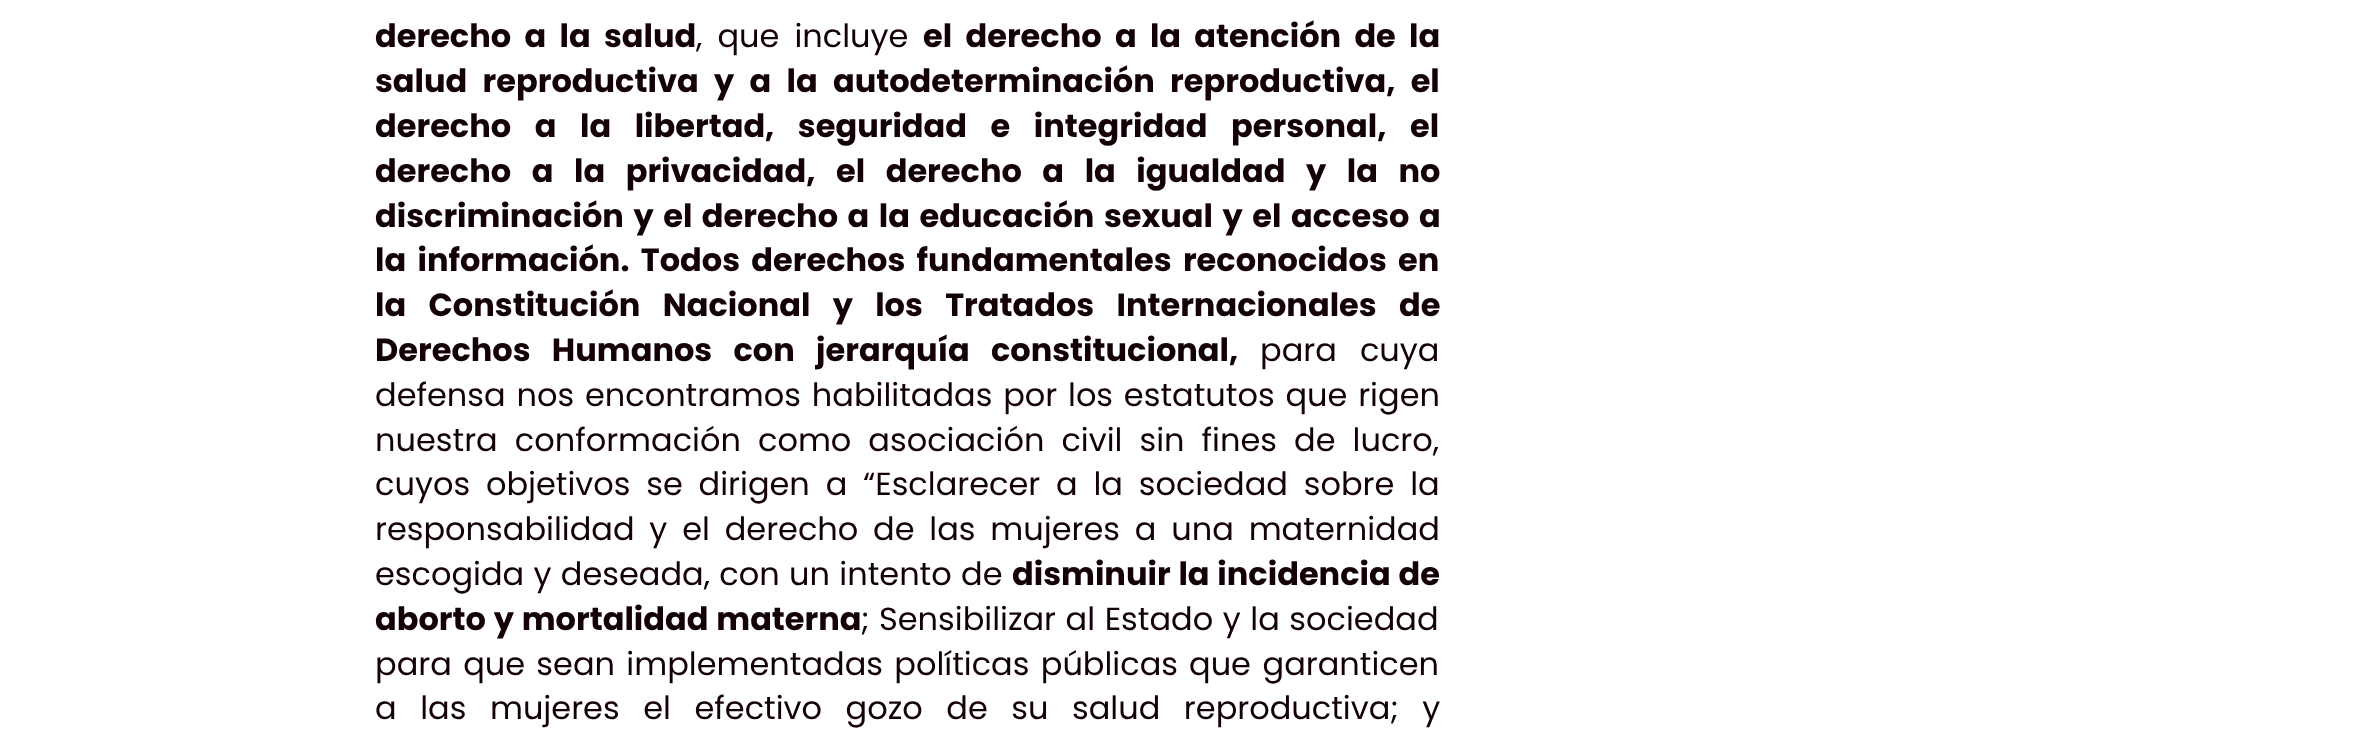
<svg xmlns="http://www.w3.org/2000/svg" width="2364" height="737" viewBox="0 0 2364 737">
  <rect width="100%" height="100%" fill="rgb(255,255,255)"/>
  <text x="375" y="47" word-spacing="6.5" font-family="Poppins" font-size="32" font-weight="bold" fill="rgb(19,0,8)">derecho a la salud</text>
  <text x="696" y="47" word-spacing="6.5" font-family="Poppins" font-size="32" fill="rgb(19,0,8)">, que incluye</text>
  <g font-family="Poppins" font-size="32" font-weight="bold" fill="rgb(19,0,8)">
    <text x="923" y="47" word-spacing="6.5">el derecho a la atención de la</text>
    <text>
      <tspan x="375" y="92" word-spacing="8.5">salud reproductiva y a la autodeterminación reproductiva, el</tspan>
      <tspan x="375" y="137" word-spacing="16.75">derecho a la libertad, seguridad e integridad personal, el</tspan>
      <tspan x="375" y="182" word-spacing="13.75">derecho a la privacidad, el derecho a la igualdad y la no</tspan>
      <tspan x="375" y="227" word-spacing="2.75">discriminación y el derecho a la educación sexual y el acceso a</tspan>
      <tspan x="375" y="271" word-spacing="4.5">la información. Todos derechos fundamentales reconocidos en</tspan>
      <tspan x="375" y="316" word-spacing="15.5">la Constitución Nacional y los Tratados Internacionales de</tspan>
      <tspan x="375" y="361" word-spacing="14.5">Derechos Humanos con jerarquía constitucional,</tspan>
    </text>
  </g>
  <g font-family="Poppins" font-size="32" fill="rgb(19,0,8)">
    <text x="1260" y="361" word-spacing="14.5">para cuya</text>
    <text>
      <tspan x="375" y="406" word-spacing="2.25">defensa nos encontramos habilitadas por los estatutos que rigen</tspan>
      <tspan x="375" y="451" word-spacing="8.5">nuestra conformación como asociación civil sin fines de lucro,</tspan>
      <tspan x="375" y="495" word-spacing="7.25">cuyos objetivos se dirigen a “Esclarecer a la sociedad sobre la</tspan>
      <tspan x="375" y="540" word-spacing="6.25">responsabilidad y el derecho de las mujeres a una maternidad</tspan>
      <tspan x="375" y="585" word-spacing="0.75">escogida y deseada, con un intento de</tspan>
    </text>
  </g>
  <g font-family="Poppins" font-size="32" font-weight="bold" fill="rgb(19,0,8)">
    <text x="1012" y="585" word-spacing="1">disminuir la incidencia de</text>
    <text x="375" y="630" word-spacing="1">aborto y mortalidad materna</text>
  </g>
  <g font-family="Poppins" font-size="32" fill="rgb(19,0,8)">
    <text x="861" y="630" word-spacing="1">; Sensibilizar al Estado y la sociedad</text>
    <text x="375" y="675" word-spacing="2.75">para que sean implementadas políticas públicas</text>
    <text x="1189" y="675" word-spacing="3">que garanticen</text>
    <text x="375" y="719" word-spacing="15">a las mujeres el efectivo gozo de su salud reproductiva; y</text>
  </g>
</svg>
